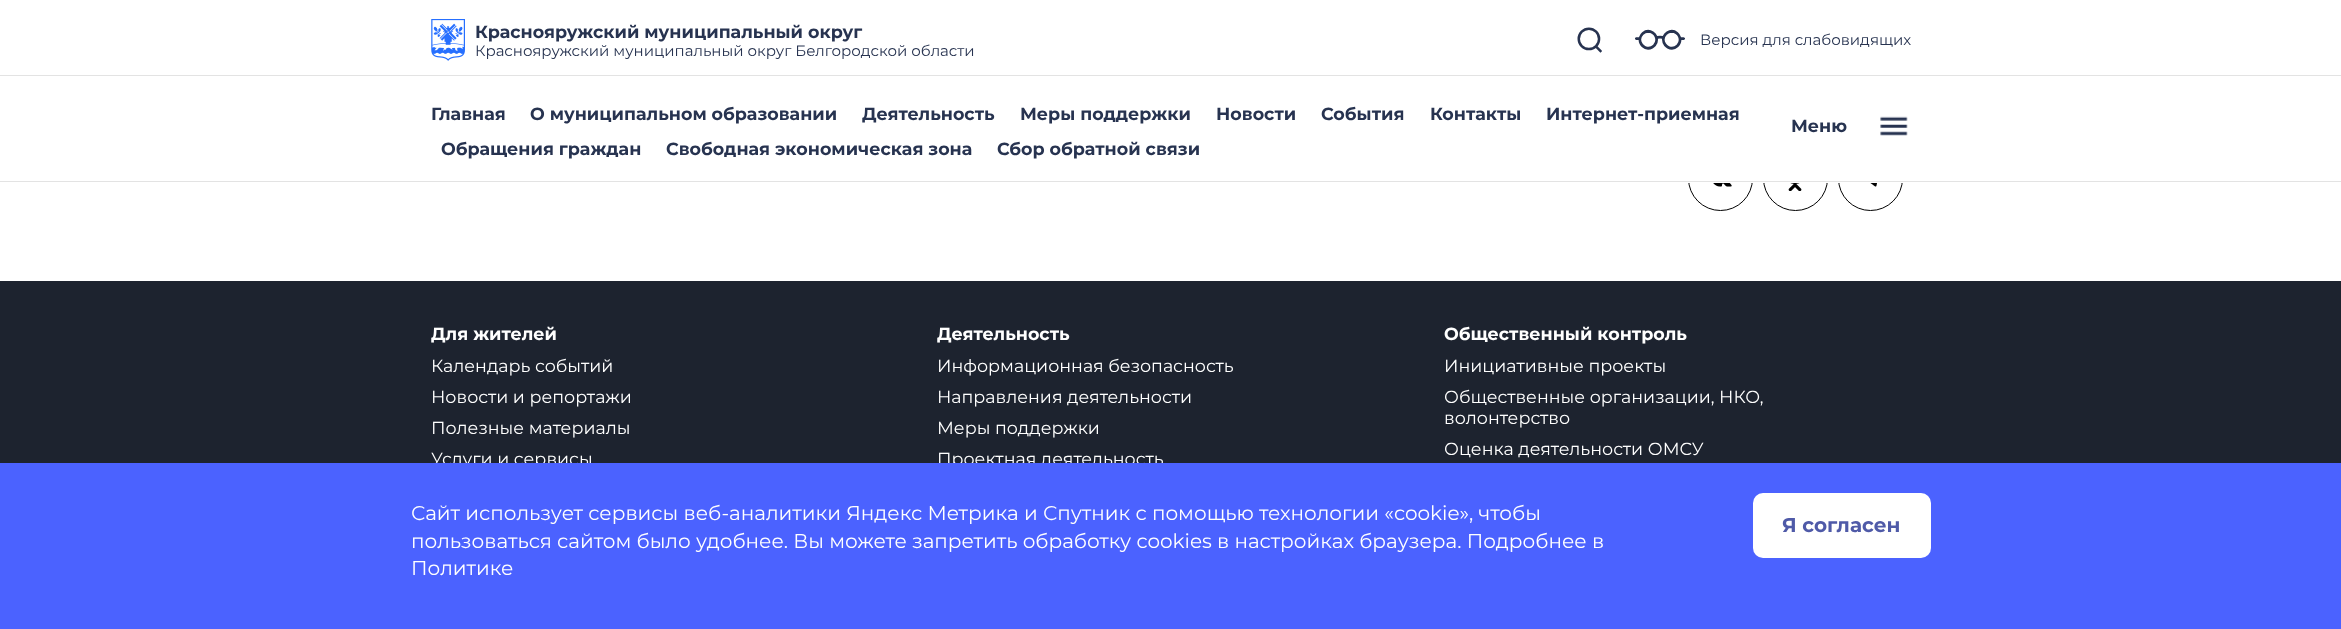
<svg xmlns="http://www.w3.org/2000/svg" width="2341" height="629" viewBox="0 0 2341 629">
  <rect width="100%" height="100%" fill="rgb(255,255,255)"/>
  <circle cx="1720.5" cy="178.5" r="32" fill="none" stroke="rgb(0,0,0)"/>
  <circle cx="1795.5" cy="178.5" r="32" fill="none" stroke="rgb(0,0,0)"/>
  <circle cx="1870.5" cy="178.5" r="32" fill="none" stroke="rgb(0,0,0)"/>
  <rect x="1688" y="146" width="215" height="37" fill="rgb(255,255,255)"/>
  <rect x="0" y="75" width="2341" height="1" fill="rgb(227,227,227)"/>
  <image x="431" y="19" width="34" height="42" href="pic1.png"/>
  <text x="475" y="38" font-family="Montserrat" font-size="17.5" font-weight="bold" fill="rgb(39,51,80)">Краснояружский муниципальный округ</text>
  <text x="475" y="56" font-family="Montserrat" font-size="15" fill="rgb(39,51,80)">Краснояружский муниципальный округ Белгородской области</text>
  <image x="1577" y="27" width="25" height="26" href="pic2.png"/>
  <image x="1635" y="29" width="50" height="21" href="pic3.png"/>
  <text x="1700" y="45" font-family="Montserrat" font-size="15" fill="rgb(39,51,80)">Версия для слабовидящих</text>
  <rect x="0" y="181" width="2341" height="1" fill="rgb(227,227,227)"/>
  <g font-family="Montserrat" font-size="17.5" font-weight="bold" fill="rgb(39,51,80)">
    <text x="431" y="120">Главная</text>
    <text x="530" y="120">О муниципальном образовании</text>
    <text x="862" y="120">Деятельность</text>
    <text x="1020" y="120">Меры поддержки</text>
    <text x="1216" y="120">Новости</text>
    <text x="1321" y="120">События</text>
    <text x="1430" y="120">Контакты</text>
    <text x="1546" y="120">Интернет-приемная</text>
    <text x="441" y="155">Обращения граждан</text>
    <text x="666" y="155">Свободная экономическая зона</text>
    <text x="997" y="155">Сбор обратной связи</text>
    <text x="1791" y="132">Меню</text>
  </g>
  <image x="1880" y="116" width="28" height="20" href="pic4.png"/>
  <image x="1713" y="183" width="19" height="4" href="pic5.png"/>
  <image x="1788" y="183" width="14" height="8" href="pic6.png"/>
  <image x="1870" y="183" width="7" height="4" href="pic7.png"/>
  <rect x="0" y="281" width="2341" height="182" fill="rgb(29,35,47)"/>
  <text x="431" y="340" font-family="Montserrat" font-size="17.5" font-weight="bold" fill="rgb(255,255,255)">Для жителей</text>
  <g font-family="Montserrat" font-size="17.5" fill="rgb(255,255,255)">
    <text>
      <tspan x="431" y="372">Календарь событий</tspan>
      <tspan x="431" y="403">Новости и репортажи</tspan>
      <tspan x="431" y="434">Полезные материалы</tspan>
      <tspan x="431" y="465">Услуги и сервисы</tspan>
    </text>
  </g>
  <text x="937" y="340" font-family="Montserrat" font-size="17.5" font-weight="bold" fill="rgb(255,255,255)">Деятельность</text>
  <g font-family="Montserrat" font-size="17.5" fill="rgb(255,255,255)">
    <text>
      <tspan x="937" y="372">Информационная безопасность</tspan>
      <tspan x="937" y="403">Направления деятельности</tspan>
      <tspan x="937" y="434">Меры поддержки</tspan>
      <tspan x="937" y="465">Проектная деятельность</tspan>
    </text>
  </g>
  <text x="1444" y="340" font-family="Montserrat" font-size="17.5" font-weight="bold" fill="rgb(255,255,255)">Общественный контроль</text>
  <g font-family="Montserrat" font-size="17.5" fill="rgb(255,255,255)">
    <text>
      <tspan x="1444" y="372">Инициативные проекты</tspan>
      <tspan x="1444" y="403">Общественные организации, НКО,</tspan>
      <tspan x="1444" y="424">волонтерство</tspan>
      <tspan x="1444" y="455">Оценка деятельности ОМСУ</tspan>
    </text>
  </g>
  <rect x="0" y="463" width="2341" height="166" fill="rgb(75,98,255)"/>
  <g font-family="Montserrat" font-size="20" fill="rgb(255,255,255)">
    <text>
      <tspan x="411" y="520">Сайт использует сервисы веб-аналитики Яндекс Метрика и Спутник с помощью технологии «cookie», чтобы</tspan>
      <tspan x="411" y="548">пользоваться сайтом было удобнее. Вы можете запретить обработку cookies в настройках браузера. Подробнее в</tspan>
      <tspan x="411" y="575">Политике</tspan>
    </text>
  </g>
  <rect x="1753" y="493" width="178" height="65" rx="10" fill="rgb(255,255,255)"/>
  <text x="1782" y="532" font-family="Montserrat" font-size="20" font-weight="bold" fill="rgb(79,90,168)">Я согласен</text>
</svg>
